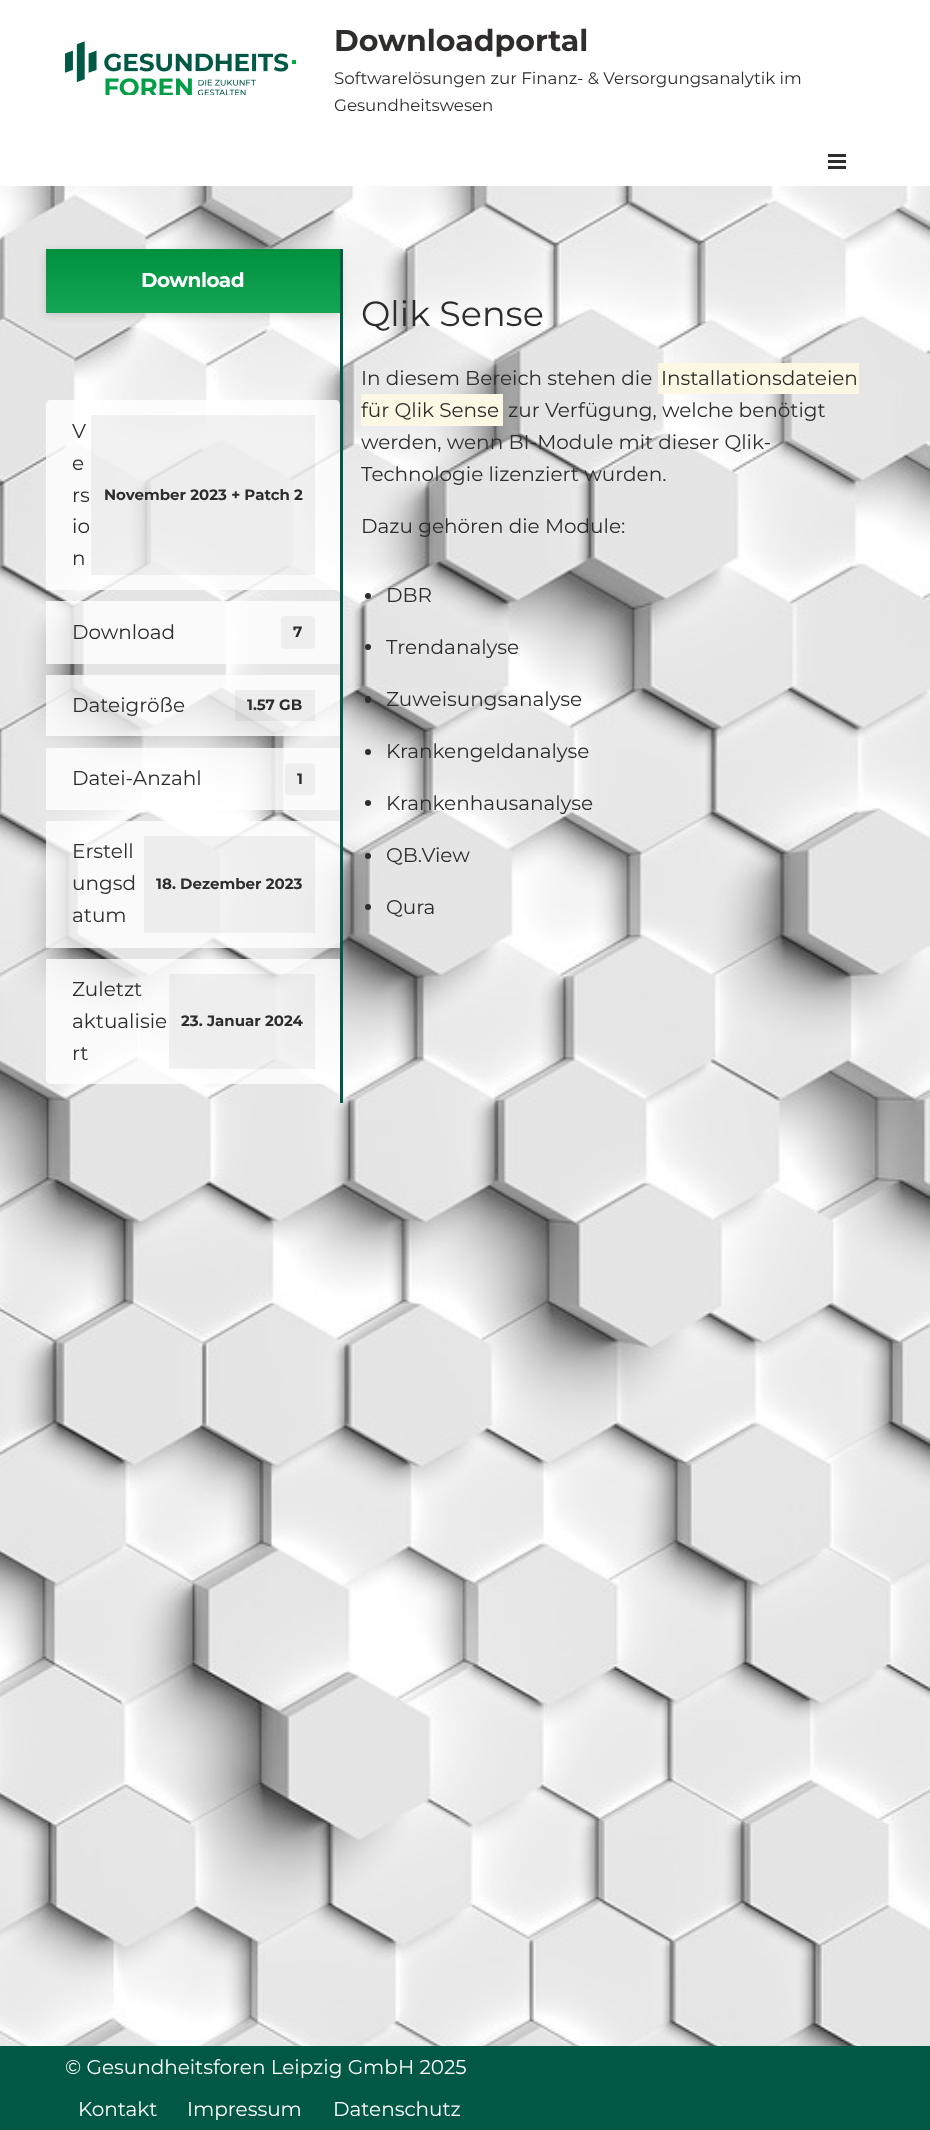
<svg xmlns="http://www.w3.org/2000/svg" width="930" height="2130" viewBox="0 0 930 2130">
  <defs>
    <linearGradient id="g1" gradientUnits="userSpaceOnUse" x1="193" y1="249" x2="193" y2="313"><stop offset="0" stop-color="rgb(0,145,63)"/><stop offset="1" stop-color="rgb(20,166,84)"/></linearGradient>
  </defs>
  <rect width="100%" height="100%" fill="rgb(255,255,255)"/>
  <image x="65" y="41" width="231" height="54" href="pic1.png"/>
  <text x="334" y="51" font-family="Montserrat" font-size="30" font-weight="bold" fill="rgb(46,45,44)">Downloadportal</text>
  <g font-family="Montserrat" font-size="16.7" fill="rgb(46,45,44)">
    <text>
      <tspan x="334" y="84">Softwarelösungen zur Finanz- &amp; Versorgungsanalytik im</tspan>
      <tspan x="334" y="111">Gesundheitswesen</tspan>
    </text>
  </g>
  <rect x="828" y="154" width="18" height="3" fill="rgb(46,45,44)"/>
  <rect x="828" y="160" width="18" height="3" fill="rgb(46,45,44)"/>
  <rect x="828" y="166" width="18" height="3" fill="rgb(46,45,44)"/>
  <image x="0" y="186" width="930" height="1860" href="pic2.png"/>
  <rect x="46" y="251" width="294" height="64" fill="rgba(0,0,0,0.15)" filter="blur(4px)"/>
  <rect x="46" y="249" width="294" height="64" fill="url(#g1)"/>
  <text x="141" y="287" font-family="Montserrat" font-size="20" font-weight="bold" letter-spacing="-0.5" fill="rgb(255,255,255)">Download</text>
  <path d="M51 400H335C338 400 340 402 340 405V590H46V405C46 402 48 400 51 400Z" fill="rgba(255,255,255,0.8)"/>
  <g font-family="Montserrat" font-size="20" fill="rgb(46,45,44)">
    <text>
      <tspan x="72" y="438">V</tspan>
      <tspan x="72" y="470">e</tspan>
      <tspan x="72" y="502">rs</tspan>
    </text>
  </g>
  <rect x="91" y="415" width="224" height="160" fill="rgba(0,0,0,0.05)"/>
  <text x="104" y="500" font-family="Montserrat" font-size="15" font-weight="bold" fill="rgb(46,45,44)">November 2023 + Patch 2</text>
  <g font-family="Montserrat" font-size="20" fill="rgb(46,45,44)">
    <text>
      <tspan x="72" y="533">io</tspan>
      <tspan x="72" y="565">n</tspan>
    </text>
  </g>
  <rect x="46" y="601" width="294" height="63" fill="rgba(255,255,255,0.8)"/>
  <text x="72" y="639" font-family="Montserrat" font-size="20" fill="rgb(46,45,44)">Download</text>
  <rect x="281" y="616" width="34" height="33" rx="4" fill="rgb(238,238,238)"/>
  <text x="293" y="637" font-family="Montserrat" font-size="15" font-weight="bold" fill="rgb(46,45,44)">7</text>
  <rect x="46" y="675" width="294" height="61" fill="rgba(255,255,255,0.8)"/>
  <text x="72" y="712" font-family="Montserrat" font-size="20" fill="rgb(46,45,44)">Dateigröße</text>
  <rect x="235" y="690" width="80" height="31" fill="rgba(0,0,0,0.05)"/>
  <text x="247" y="710" font-family="Montserrat" font-size="15" font-weight="bold" fill="rgb(46,45,44)">1.57 GB</text>
  <rect x="46" y="748" width="294" height="62" fill="rgba(255,255,255,0.8)"/>
  <text x="72" y="785" font-family="Montserrat" font-size="20" fill="rgb(46,45,44)">Datei-Anzahl</text>
  <rect x="285" y="763" width="30" height="32" rx="4" fill="rgb(238,238,238)"/>
  <text x="297" y="784" font-family="Montserrat" font-size="15" font-weight="bold" fill="rgb(46,45,44)">1</text>
  <rect x="46" y="821" width="294" height="127" fill="rgba(255,255,255,0.8)"/>
  <g font-family="Montserrat" font-size="20" fill="rgb(46,45,44)">
    <text>
      <tspan x="72" y="858">Erstell</tspan>
      <tspan x="72" y="890">ungsd</tspan>
    </text>
  </g>
  <rect x="144" y="836" width="171" height="97" fill="rgba(0,0,0,0.05)"/>
  <text x="156" y="889" font-family="Montserrat" font-size="15" font-weight="bold" fill="rgb(46,45,44)">18. Dezember 2023</text>
  <text x="72" y="922" font-family="Montserrat" font-size="20" fill="rgb(46,45,44)">atum</text>
  <path d="M46 959H340V1079C340 1082 338 1084 335 1084H51C48 1084 46 1082 46 1079Z" fill="rgba(255,255,255,0.8)"/>
  <g font-family="Montserrat" font-size="20" fill="rgb(46,45,44)">
    <text>
      <tspan x="72" y="996">Zuletzt</tspan>
      <tspan x="72" y="1028">aktualisie</tspan>
    </text>
  </g>
  <rect x="169" y="974" width="146" height="95" fill="rgba(0,0,0,0.05)"/>
  <text x="181" y="1026" font-family="Montserrat" font-size="15" font-weight="bold" fill="rgb(46,45,44)">23. Januar 2024</text>
  <text x="72" y="1060" font-family="Montserrat" font-size="20" fill="rgb(46,45,44)">rt</text>
  <rect x="340" y="249" width="3" height="854" fill="rgb(0,88,69)"/>
  <text x="361" y="326" font-family="Montserrat" font-size="35" fill="rgb(46,45,44)">Qlik Sense</text>
  <text x="361" y="385" font-family="Montserrat" font-size="20" fill="rgb(46,45,44)">In diesem Bereich stehen die</text>
  <rect x="658" y="363" width="201" height="31" fill="rgb(252,248,227)"/>
  <text x="661" y="385" font-family="Montserrat" font-size="20" fill="rgb(46,45,44)">Installationsdateien</text>
  <rect x="361" y="394" width="142" height="32" fill="rgb(252,248,227)"/>
  <g font-family="Montserrat" font-size="20" fill="rgb(46,45,44)">
    <text x="361" y="417">für Qlik Sense</text>
    <text x="508" y="417">zur Verfügung, welche benötigt</text>
    <text>
      <tspan x="361" y="449">werden, wenn BI-Module mit dieser Qlik-</tspan>
      <tspan x="361" y="481">Technologie lizenziert wurden.</tspan>
    </text>
    <text x="361" y="533">Dazu gehören die Module:</text>
  </g>
  <circle cx="368" cy="596" r="3" fill="rgb(46,45,44)"/>
  <text x="386" y="602" font-family="Montserrat" font-size="20" fill="rgb(46,45,44)">DBR</text>
  <circle cx="368" cy="647" r="3" fill="rgb(46,45,44)"/>
  <text x="386" y="654" font-family="Montserrat" font-size="20" fill="rgb(46,45,44)">Trendanalyse</text>
  <rect x="365" y="696" width="6" height="7" rx="3" fill="rgb(46,45,44)"/>
  <text x="386" y="706" font-family="Montserrat" font-size="20" fill="rgb(46,45,44)">Zuweisungsanalyse</text>
  <circle cx="368" cy="752" r="3" fill="rgb(46,45,44)"/>
  <text x="386" y="758" font-family="Montserrat" font-size="20" fill="rgb(46,45,44)">Krankengeldanalyse</text>
  <circle cx="368" cy="803" r="3" fill="rgb(46,45,44)"/>
  <text x="386" y="810" font-family="Montserrat" font-size="20" fill="rgb(46,45,44)">Krankenhausanalyse</text>
  <circle cx="368" cy="856" r="3" fill="rgb(46,45,44)"/>
  <text x="386" y="862" font-family="Montserrat" font-size="20" fill="rgb(46,45,44)">QB.View</text>
  <circle cx="368" cy="907" r="3" fill="rgb(46,45,44)"/>
  <text x="386" y="914" font-family="Montserrat" font-size="20" fill="rgb(46,45,44)">Qura</text>
  <rect x="0" y="2046" width="930" height="84" fill="rgb(0,88,69)"/>
  <g font-family="Montserrat" font-size="20" fill="rgb(255,255,255)">
    <text x="65" y="2074">© Gesundheitsforen Leipzig GmbH 2025</text>
    <text x="78" y="2116">Kontakt</text>
    <text x="187" y="2116">Impressum</text>
    <text x="333" y="2116">Datenschutz</text>
  </g>
</svg>
